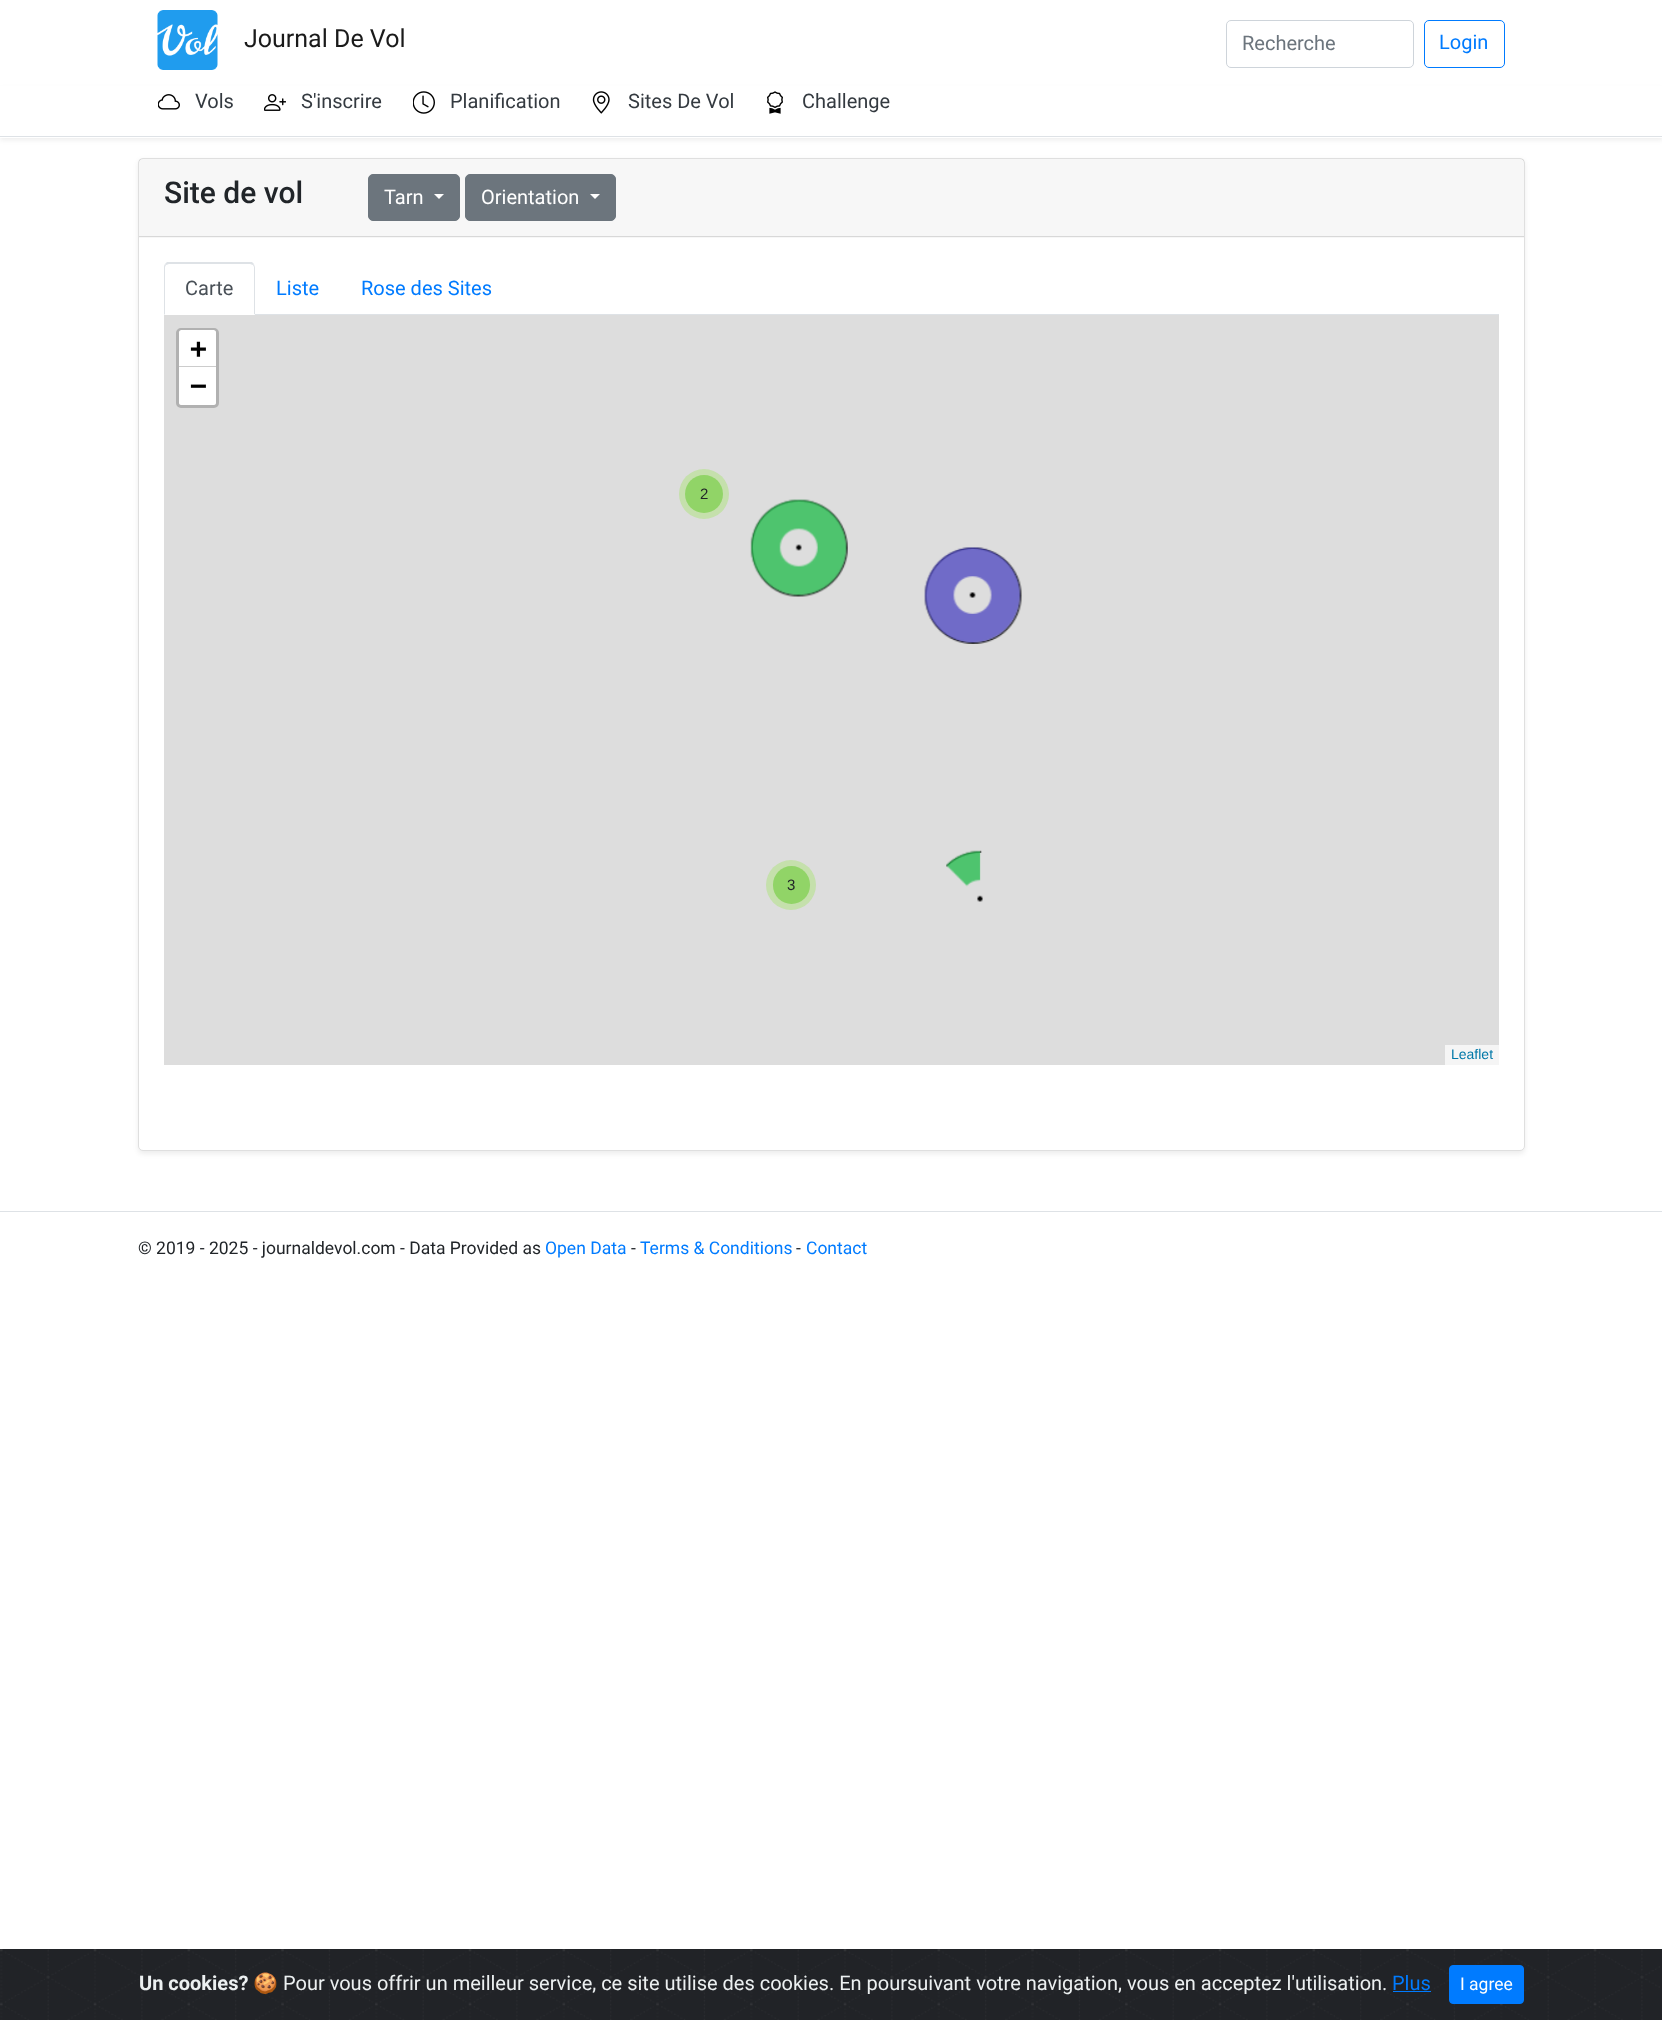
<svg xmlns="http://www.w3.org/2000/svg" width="1662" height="2020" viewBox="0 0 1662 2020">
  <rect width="100%" height="100%" fill="rgb(255,255,255)"/>
  <image x="157" y="10" width="61" height="60" href="pic1.png"/>
  <text x="244" y="47" font-family="Roboto" font-size="25" fill="rgb(26,26,26)">Journal De Vol</text>
  <rect x="1226.5" y="20.5" width="187" height="47" rx="4.5" fill="none" stroke="rgb(206,212,218)"/>
  <text x="1242" y="50" font-family="Roboto" font-size="20" fill="rgb(108,117,125)">Recherche</text>
  <rect x="1424.5" y="20.5" width="80" height="47" rx="4.5" fill="none" stroke="rgb(0,123,255)"/>
  <text x="1439" y="49" font-family="Roboto" font-size="20" fill="rgb(0,123,255)">Login</text>
  <rect x="0" y="89" width="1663" height="51" fill="rgba(0,0,0,0.07)" filter="blur(2.5px)"/>
  <rect x="0" y="86" width="1662" height="52" fill="rgb(255,255,255)"/>
  <rect x="0" y="136" width="1662" height="1" fill="rgb(222,226,230)"/>
  <image x="158" y="94" width="22" height="16" href="pic2.png"/>
  <text x="195" y="108" font-family="Roboto" font-size="20" fill="rgb(52,58,64)">Vols</text>
  <image x="264" y="94" width="22" height="17" href="pic3.png"/>
  <text x="301" y="108" font-family="Roboto" font-size="20" fill="rgb(52,58,64)">S'inscrire</text>
  <image x="413" y="91" width="22" height="23" href="pic4.png"/>
  <text x="450" y="108" font-family="Roboto" font-size="20" fill="rgb(52,58,64)">Planification</text>
  <image x="592" y="91" width="18" height="23" href="pic5.png"/>
  <text x="628" y="108" font-family="Roboto" font-size="20" fill="rgb(52,58,64)">Sites De Vol</text>
  <image x="767" y="91" width="16" height="23" href="pic6.png"/>
  <text x="802" y="108" font-family="Roboto" font-size="20" fill="rgb(52,58,64)">Challenge</text>
  <rect x="138" y="160" width="1387" height="994" rx="5" fill="rgba(0,0,0,0.07)" filter="blur(2.5px)"/>
  <rect x="138.5" y="158.5" width="1386" height="992" rx="4.5" fill="rgb(255,255,255)" stroke="rgb(223,223,223)"/>
  <rect x="139" y="159" width="1385" height="79" fill="rgba(0,0,0,0.03)"/>
  <rect x="139" y="236" width="1385" height="1" fill="rgb(216,216,216)"/>
  <text x="164" y="203" font-family="Roboto" font-size="30" font-weight="500" fill="rgb(33,37,41)">Site de vol</text>
  <rect x="368.5" y="174.5" width="91" height="46" rx="4.5" fill="rgb(108,117,125)" stroke="rgb(108,117,125)"/>
  <text x="384" y="204" font-family="Roboto" font-size="20" fill="rgb(255,255,255)">Tarn</text>
  <path d="M434 194H444L439 199Z" fill="rgb(255,255,255)"/>
  <rect x="465.5" y="174.5" width="150" height="46" rx="4.5" fill="rgb(108,117,125)" stroke="rgb(108,117,125)"/>
  <text x="481" y="204" font-family="Roboto" font-size="20" fill="rgb(255,255,255)">Orientation</text>
  <path d="M590 194H600L595 199Z" fill="rgb(255,255,255)"/>
  <rect x="255" y="314" width="1244" height="1" fill="rgb(222,226,230)"/>
  <path d="M169 264L166 265L165 264L167 262H252L254 264L253 265L250 264Z" fill="rgb(222,226,230)"/>
  <path d="M255 315V268C255 266 254 265 254 264L253 265L254 267V314Z" fill="rgb(222,226,230)"/>
  <path d="M255 315L254 314H165L164 315Z" fill="rgb(255,255,255)"/>
  <path d="M164 315V268C164 267 164 265 165 264L166 265L165 267V314Z" fill="rgb(222,226,230)"/>
  <text x="185" y="295" font-family="Roboto" font-size="20" fill="rgb(73,80,87)">Carte</text>
  <g font-family="Roboto" font-size="20" fill="rgb(0,123,255)">
    <text x="276" y="295">Liste</text>
    <text x="361" y="295">Rose des Sites</text>
  </g>
  <rect x="164" y="315" width="1335" height="750" fill="rgb(221,221,221)"/>
  <rect x="177.5" y="329.5" width="40" height="77" rx="3.5" fill="none" stroke="rgb(177,177,177)" stroke-width="3"/>
  <path d="M181.5 330H213.5C215 330 216 331 216 332.5V368H179V332.5C179 331 180 330 181.5 330Z" fill="rgb(255,255,255)"/>
  <rect x="179" y="366" width="37" height="1" fill="rgb(204,204,204)"/>
  <text x="190" y="358" font-family="DejaVu Sans Mono" font-size="28" font-weight="bold" fill="rgb(0,0,0)">+</text>
  <path d="M179 368H216V402.5C216 404 215 405 213.5 405H181.5C180 405 179 404 179 402.5Z" fill="rgb(255,255,255)"/>
  <text x="190" y="395" font-family="DejaVu Sans Mono" font-size="28" font-weight="bold" fill="rgb(0,0,0)">−</text>
  <rect x="1445" y="1045" width="54" height="20" fill="rgb(245,245,245)"/>
  <text x="1451" y="1059" font-family="Liberation Sans" font-size="14" fill="rgb(0,120,168)">Leaflet</text>
  <circle cx="704" cy="494" r="25" fill="rgb(197,224,172)"/>
  <circle cx="704" cy="494" r="19" fill="rgb(145,212,103)"/>
  <text x="700" y="499" font-family="Liberation Sans" font-size="15" fill="rgb(33,37,41)">2</text>
  <image x="750" y="499" width="98" height="98" href="pic7.png"/>
  <image x="924" y="547" width="98" height="97" href="pic8.png"/>
  <circle cx="791" cy="885" r="25" fill="rgb(197,224,172)"/>
  <rect x="773" y="866" width="37" height="38" rx="18.5" fill="rgb(145,212,103)"/>
  <text x="787" y="890" font-family="Liberation Sans" font-size="15" fill="rgb(33,37,41)">3</text>
  <image x="946" y="850" width="37" height="52" href="pic9.png"/>
  <rect x="0" y="1211" width="1662" height="1" fill="rgb(222,226,230)"/>
  <text x="138" y="1254" font-family="Roboto" font-size="17.5" fill="rgb(33,37,41)">© 2019 - 2025 - journaldevol.com - Data Provided as</text>
  <text x="545" y="1254" font-family="Roboto" font-size="17.5" fill="rgb(0,123,255)">Open Data</text>
  <text x="631" y="1254" font-family="Roboto" font-size="17.5" fill="rgb(33,37,41)">-</text>
  <text x="640" y="1254" font-family="Roboto" font-size="17.5" fill="rgb(0,123,255)">Terms &amp; Conditions</text>
  <text x="796" y="1254" font-family="Roboto" font-size="17.5" fill="rgb(33,37,41)">-</text>
  <text x="806" y="1254" font-family="Roboto" font-size="17.5" fill="rgb(0,123,255)">Contact</text>
  <rect x="1660" y="1949" width="2" height="71" fill="rgb(33,35,39)"/>
  <image x="0" y="1949" width="1660" height="71" href="pic10.png"/>
  <text x="139" y="1990" font-family="Roboto" font-size="20" font-weight="bold" fill="rgb(236,240,241)">Un cookies?</text>
  <text x="253" y="1990" font-family="Noto Color Emoji" font-size="20" fill="rgb(236,240,241)">🍪</text>
  <text x="283" y="1990" font-family="Roboto" font-size="20" fill="rgb(236,240,241)">Pour vous offrir un meilleur service, ce site utilise des cookies. En poursuivant votre navigation, vous en acceptez l'utilisation.</text>
  <text x="1392" y="1990" font-family="Roboto" font-size="20" fill="rgb(0,123,255)">Plus</text>
  <rect x="1393" y="1991" width="38" height="1" fill="rgb(0,123,255)"/>
  <rect x="1449.5" y="1965.5" width="74" height="38" rx="3.5" fill="rgb(0,123,255)" stroke="rgb(0,123,255)"/>
  <text x="1460" y="1990" font-family="Roboto" font-size="17.5" fill="rgb(255,255,255)">I agree</text>
</svg>
